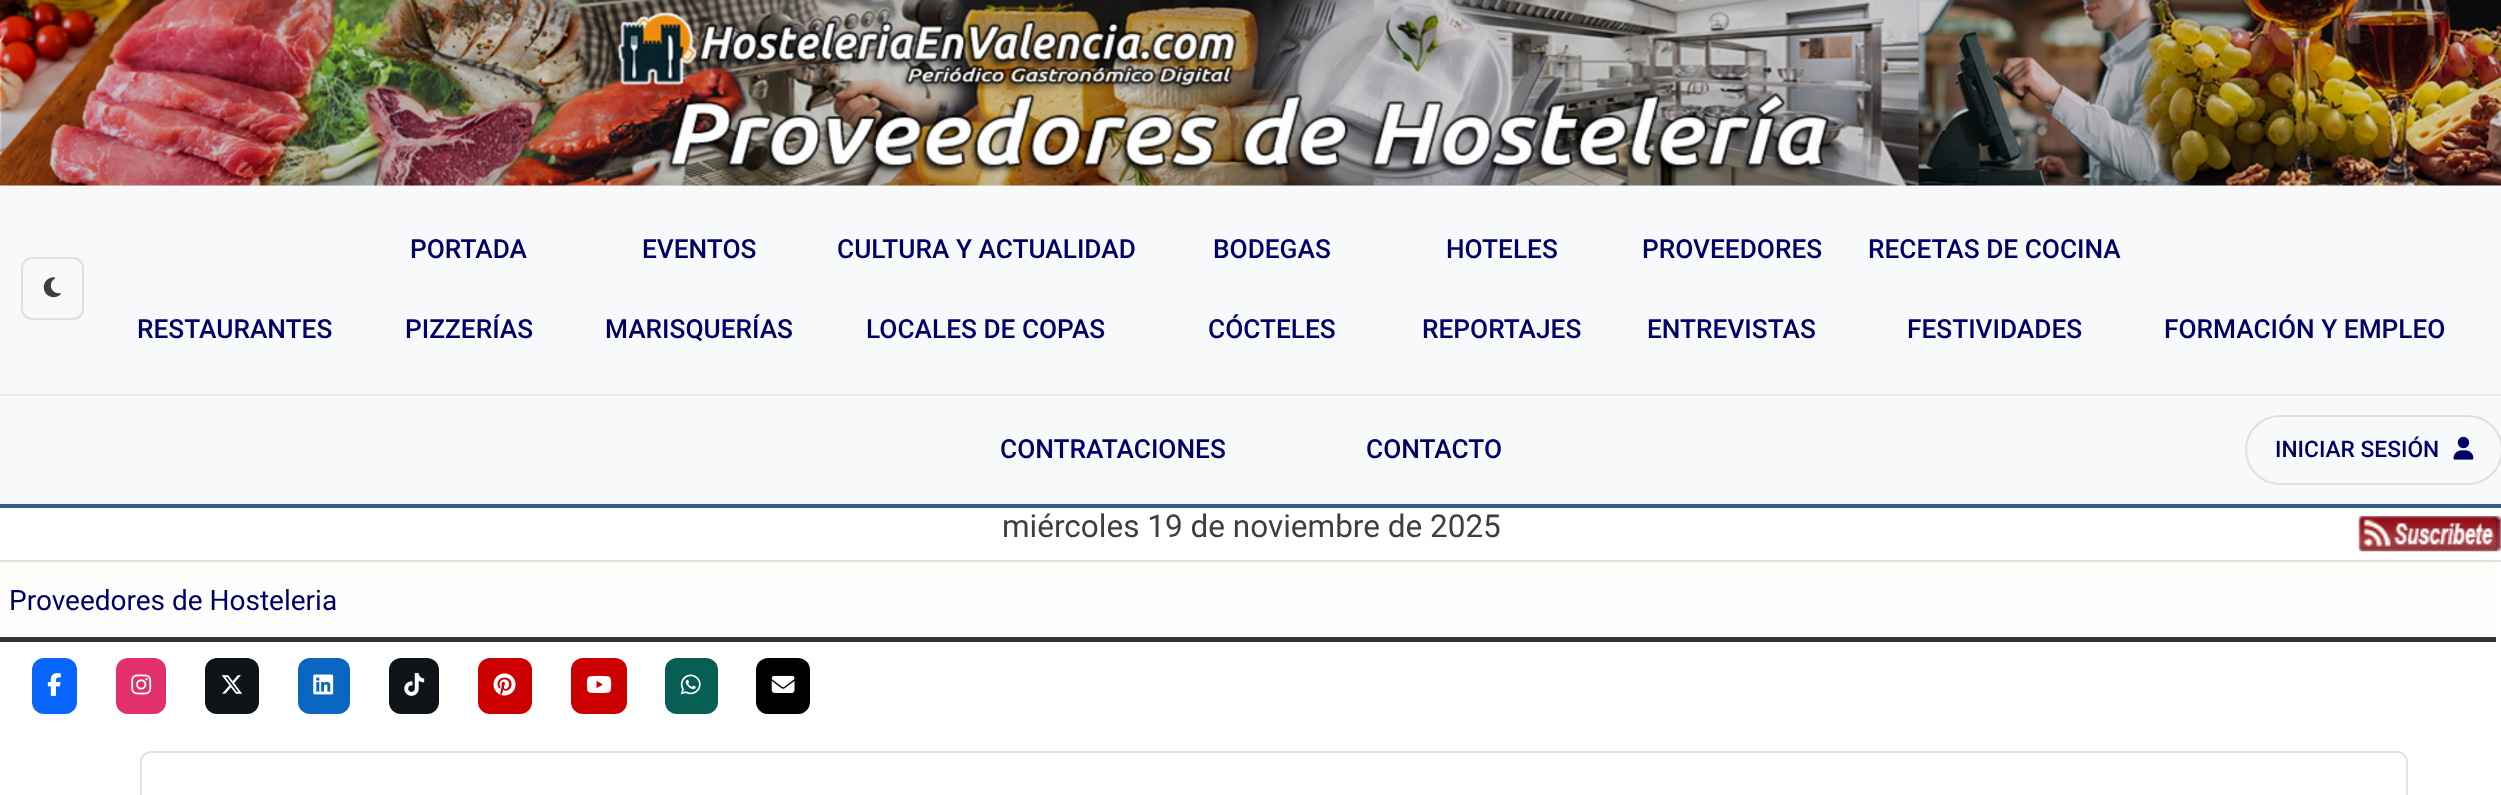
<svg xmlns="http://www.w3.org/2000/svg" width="2501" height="795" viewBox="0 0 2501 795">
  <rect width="100%" height="100%" fill="rgb(255,255,255)"/>
  <image x="0" y="0" width="2501" height="186" href="pic1.png"/>
  <rect x="0" y="189" width="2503" height="210" fill="rgba(0,0,0,0.1)" filter="blur(13px)"/>
  <rect x="0" y="186" width="2501" height="208" fill="rgb(248,249,250)"/>
  <rect x="0" y="394" width="2501" height="2" fill="rgb(236,237,238)"/>
  <rect x="22" y="258" width="61" height="61" rx="10" fill="none" stroke="rgb(223,224,225)" stroke-width="2"/>
  <image x="43" y="277" width="18" height="21" href="pic2.png"/>
  <g font-family="Roboto" font-size="26.25" font-weight="500" fill="rgb(0,0,102)">
    <text x="410" y="258">PORTADA</text>
    <text x="642" y="258">EVENTOS</text>
    <text x="837" y="258">CULTURA Y ACTUALIDAD</text>
    <text x="1213" y="258">BODEGAS</text>
    <text x="1446" y="258">HOTELES</text>
    <text x="1642" y="258">PROVEEDORES</text>
    <text x="1868" y="258">RECETAS DE COCINA</text>
    <text x="137" y="338">RESTAURANTES</text>
    <text x="405" y="338">PIZZERÍAS</text>
    <text x="605" y="338">MARISQUERÍAS</text>
    <text x="866" y="338">LOCALES DE COPAS</text>
    <text x="1208" y="338">CÓCTELES</text>
    <text x="1422" y="338">REPORTAJES</text>
    <text x="1647" y="338">ENTREVISTAS</text>
    <text x="1907" y="338">FESTIVIDADES</text>
    <text x="2164" y="338">FORMACIÓN Y EMPLEO</text>
  </g>
  <rect x="0" y="504" width="2501" height="4" fill="rgb(50,93,136)"/>
  <rect x="0" y="396" width="2501" height="108" fill="rgb(248,249,250)"/>
  <g font-family="Roboto" font-size="26.25" font-weight="500" fill="rgb(0,0,102)">
    <text x="1000" y="458">CONTRATACIONES</text>
    <text x="1366" y="458">CONTACTO</text>
  </g>
  <rect x="2246" y="416" width="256" height="68" rx="34" fill="none" stroke="rgb(223,224,225)" stroke-width="2"/>
  <text x="2275" y="457" font-family="Roboto" font-size="22.75" font-weight="500" fill="rgb(0,0,102)">INICIAR SESIÓN</text>
  <image x="2453" y="436" width="21" height="24" href="pic3.png"/>
  <text x="1002" y="537" font-family="Roboto" font-size="31.5" fill="rgb(62,63,58)">miércoles 19 de noviembre de 2025</text>
  <image x="2358" y="516" width="143" height="36" href="pic4.png"/>
  <rect x="-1" y="561" width="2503" height="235" fill="none" stroke="rgb(231,225,215)" stroke-width="2"/>
  <path d="M0 562H2487C2492 562 2496 566 2496 571V642H-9V571C-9 566-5 562 0 562Z" fill="rgb(254,253,252)"/>
  <rect x="0" y="637" width="2496" height="5" fill="rgb(51,51,51)"/>
  <text x="9" y="610" font-family="Roboto" font-size="28" fill="rgb(0,0,102)">Proveedores de Hosteleria</text>
  <rect x="32" y="658" width="45" height="56" rx="12" fill="rgb(8,102,255)"/>
  <image x="47" y="673" width="14" height="23" href="pic5.png"/>
  <rect x="116" y="658" width="50" height="56" rx="12" fill="rgb(225,48,108)"/>
  <image x="131" y="674" width="21" height="21" href="pic6.png"/>
  <rect x="205" y="658" width="54" height="56" rx="12" fill="rgb(15,20,25)"/>
  <image x="221" y="675" width="21" height="19" href="pic7.png"/>
  <rect x="298" y="658" width="52" height="56" rx="12" fill="rgb(10,102,194)"/>
  <image x="313" y="674" width="21" height="21" href="pic8.png"/>
  <rect x="389" y="658" width="50" height="56" rx="12" fill="rgb(15,20,25)"/>
  <image x="404" y="673" width="21" height="23" href="pic9.png"/>
  <rect x="478" y="658" width="54" height="56" rx="12" fill="rgb(204,0,0)"/>
  <image x="493" y="673" width="23" height="23" href="pic10.png"/>
  <rect x="571" y="658" width="56" height="56" rx="12" fill="rgb(204,0,0)"/>
  <image x="586" y="675" width="26" height="18" href="pic11.png"/>
  <rect x="665" y="658" width="53" height="56" rx="12" fill="rgb(7,94,84)"/>
  <image x="680" y="674" width="21" height="21" href="pic12.png"/>
  <rect x="756" y="658" width="54" height="56" rx="12" fill="rgb(0,0,0)"/>
  <image x="771" y="675" width="24" height="18" href="pic13.png"/>
  <rect x="141" y="752" width="2266" height="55" rx="10" fill="none" stroke="rgb(231,225,215)" stroke-width="2"/>
</svg>
